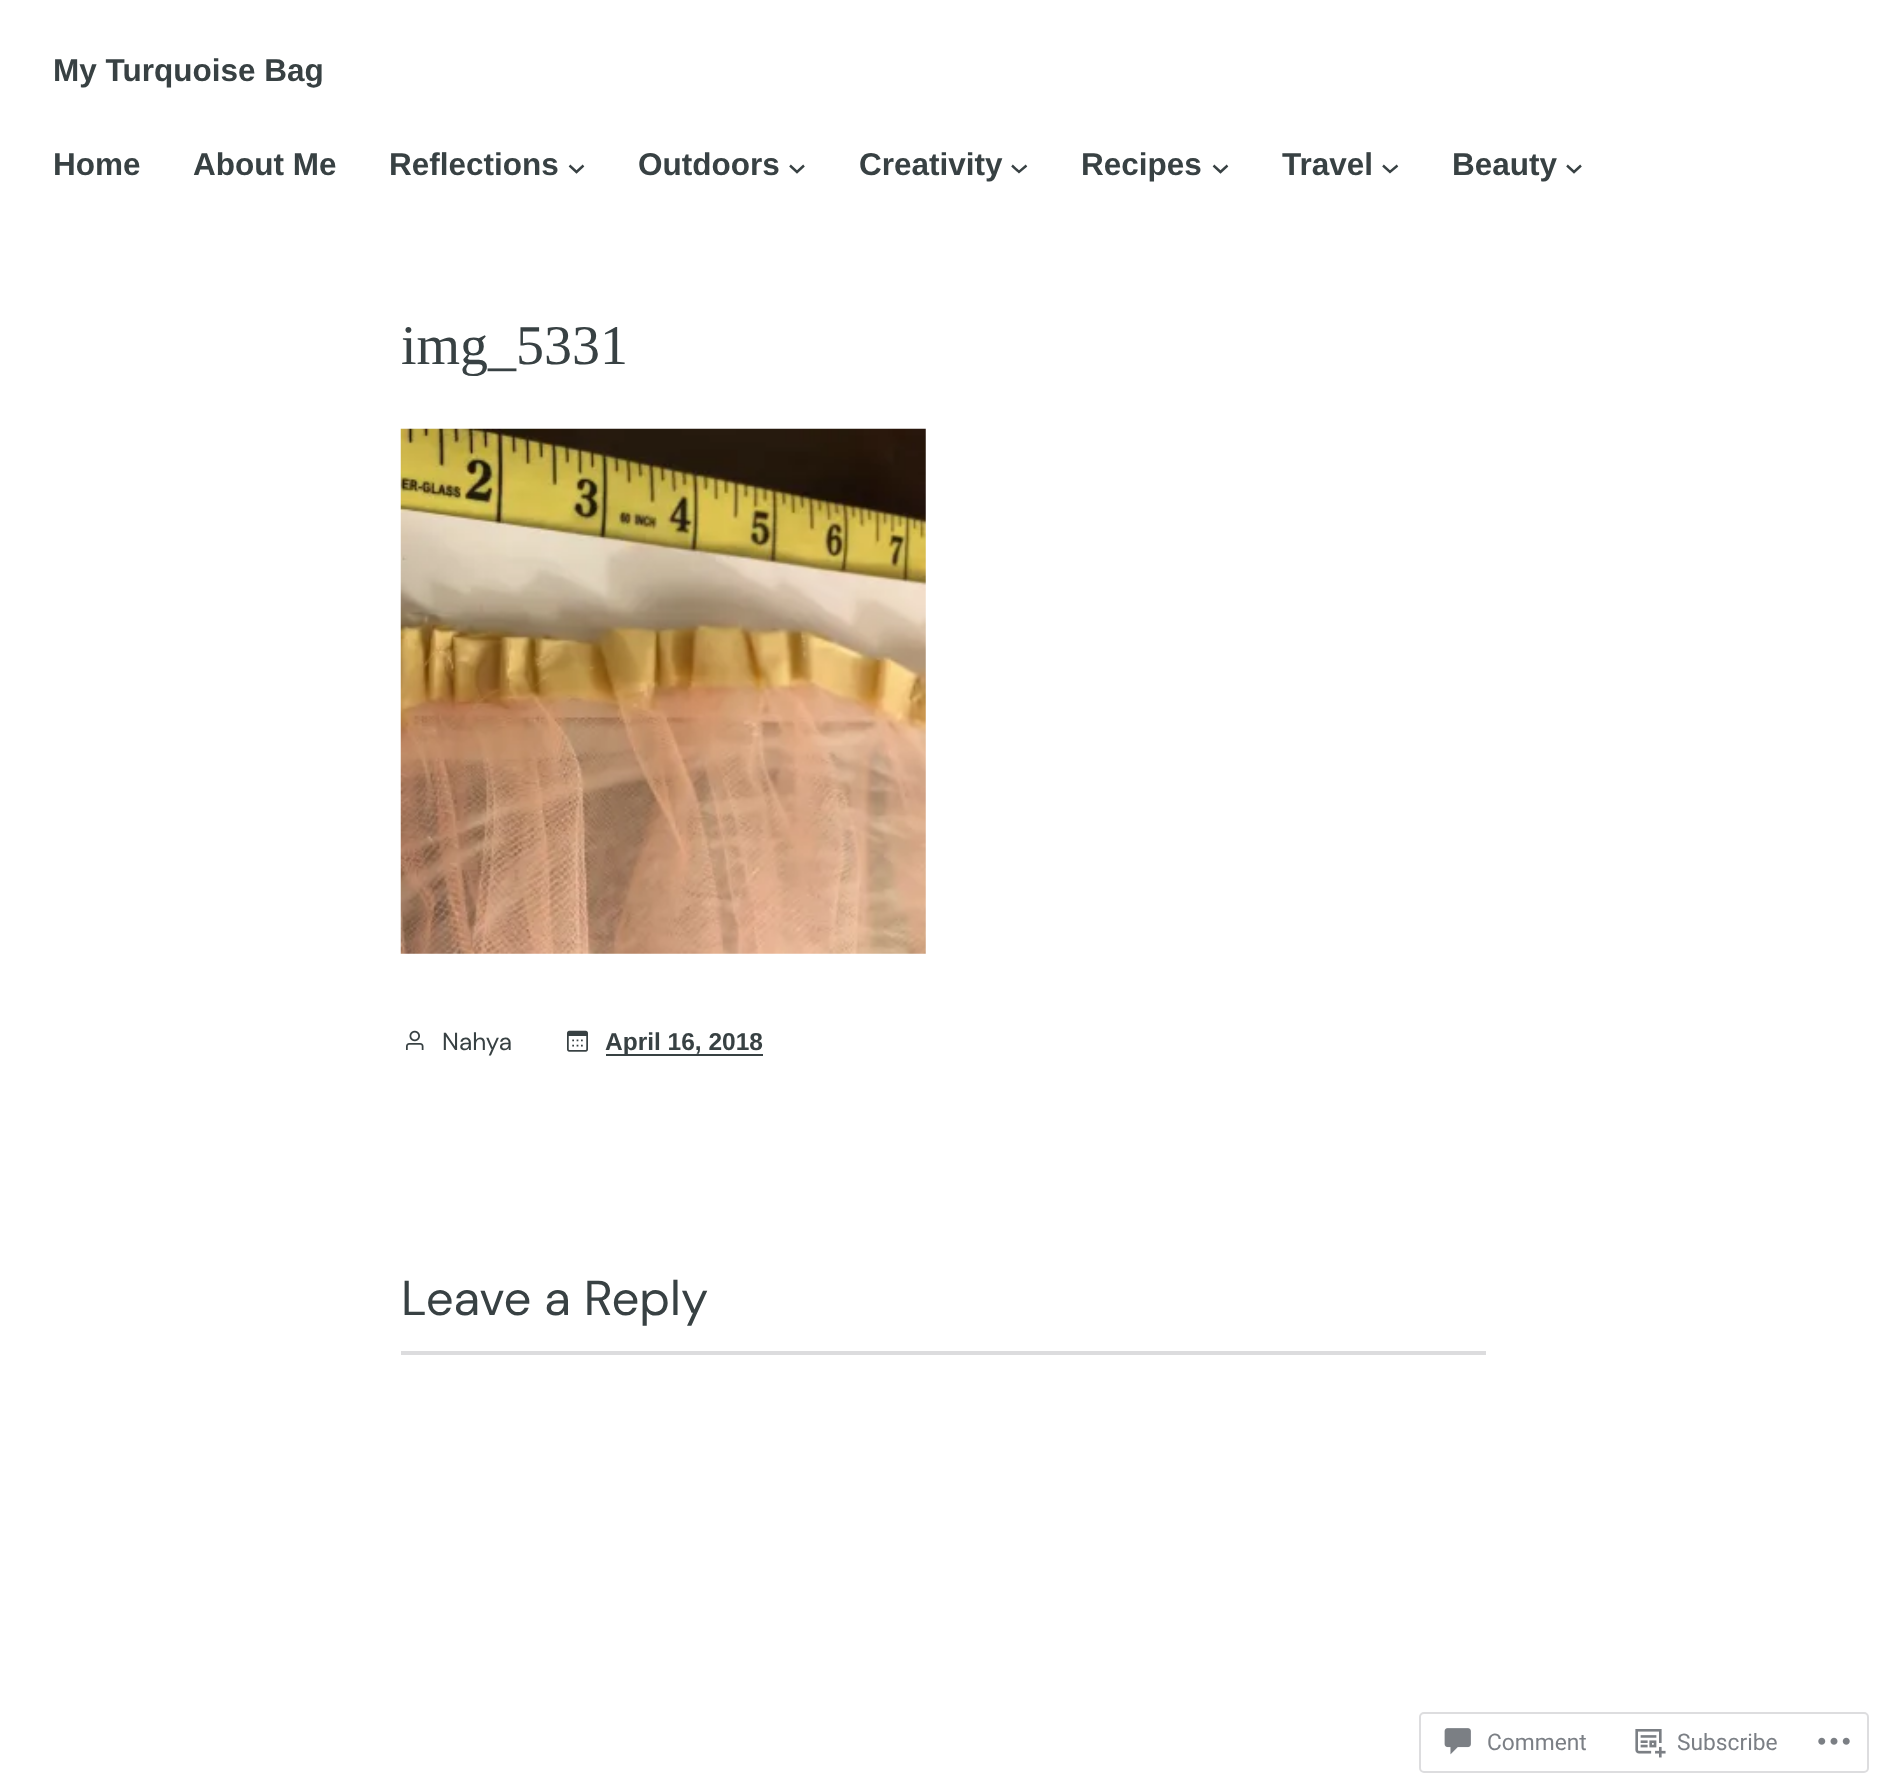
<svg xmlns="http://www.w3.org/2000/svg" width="1885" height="1790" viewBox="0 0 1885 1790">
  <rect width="100%" height="100%" fill="rgb(255,255,255)"/>
  <g font-family="Liberation Sans" font-size="31.5" font-weight="bold" fill="rgb(56,65,67)">
    <text x="53" y="81">My Turquoise Bag</text>
    <text x="53" y="175">Home</text>
    <text x="193" y="175">About Me</text>
    <text x="389" y="175">Reflections</text>
  </g>
  <path d="M569.5 165.5L576.5 172L583.5 165.5" fill="none" stroke="rgb(56,65,67)" stroke-width="2.4"/>
  <text x="638" y="175" font-family="Liberation Sans" font-size="31.5" font-weight="bold" fill="rgb(56,65,67)">Outdoors</text>
  <path d="M790 165.5L797 172L804 165.5" fill="none" stroke="rgb(56,65,67)" stroke-width="2.4"/>
  <text x="859" y="175" font-family="Liberation Sans" font-size="31.5" font-weight="bold" fill="rgb(56,65,67)">Creativity</text>
  <path d="M1012 165.5L1019 172L1026.5 165.5" fill="none" stroke="rgb(56,65,67)" stroke-width="2.4"/>
  <text x="1081" y="175" font-family="Liberation Sans" font-size="31.5" font-weight="bold" fill="rgb(56,65,67)">Recipes</text>
  <path d="M1213.5 165.5L1220.5 172L1227.5 165.5" fill="none" stroke="rgb(56,65,67)" stroke-width="2.4"/>
  <text x="1282" y="175" font-family="Liberation Sans" font-size="31.5" font-weight="bold" fill="rgb(56,65,67)">Travel</text>
  <path d="M1383 165.5L1390 172L1397.5 165.5" fill="none" stroke="rgb(56,65,67)" stroke-width="2.4"/>
  <text x="1452" y="175" font-family="Liberation Sans" font-size="31.5" font-weight="bold" fill="rgb(56,65,67)">Beauty</text>
  <path d="M1567 165.5L1574 172L1581 165.5" fill="none" stroke="rgb(56,65,67)" stroke-width="2.4"/>
  <text x="401" y="364" font-family="Liberation Serif" font-size="56" fill="rgb(56,65,67)">img_5331</text>
  <image x="400" y="428" width="526" height="526" href="pic1.png"/>
  <image x="406" y="1030" width="18" height="20" href="pic2.png"/>
  <text x="442" y="1050" font-family="DM Sans" font-size="24.5" fill="rgb(56,65,67)">Nahya</text>
  <image x="567" y="1030" width="21" height="22" href="pic3.png"/>
  <rect x="606" y="1054" width="157" height="2" fill="rgb(56,65,67)"/>
  <text x="605" y="1050" font-family="Liberation Sans" font-size="24.5" font-weight="bold" fill="rgb(56,65,67)">April 16, 2018</text>
  <text x="401" y="1315" font-family="DM Sans" font-size="49" fill="rgb(56,65,67)">Leave a Reply</text>
  <rect x="401" y="1351" width="1085" height="4" fill="rgb(220,220,222)"/>
  <rect x="1420" y="1713" width="448" height="59" rx="4" fill="none" stroke="rgb(221,221,223)" stroke-width="2"/>
  <image x="1444" y="1728" width="27" height="27" href="pic4.png"/>
  <text x="1487" y="1750" font-family="Roboto" font-size="22.75" fill="rgb(123,127,133)">Comment</text>
  <image x="1635" y="1729" width="31" height="29" href="pic5.png"/>
  <text x="1677" y="1750" font-family="Roboto" font-size="22.75" fill="rgb(123,127,133)">Subscribe</text>
  <image x="1818" y="1737" width="32" height="8" href="pic6.png"/>
</svg>
